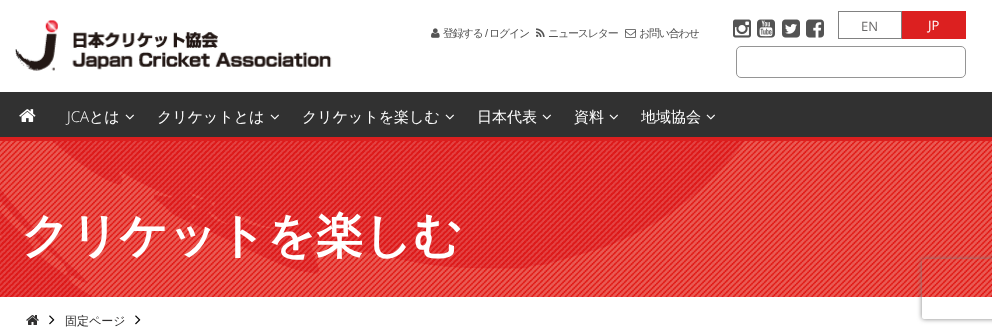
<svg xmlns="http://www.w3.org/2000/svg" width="992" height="333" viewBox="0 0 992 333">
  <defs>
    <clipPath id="clip1"><path d="M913 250H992V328H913ZM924 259H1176C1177 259 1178 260 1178 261V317C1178 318 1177 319 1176 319H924C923 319 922 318 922 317V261C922 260 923 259 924 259Z" clip-rule="evenodd"/></clipPath>
  </defs>
  <rect width="100%" height="100%" fill="rgb(255,255,255)"/>
  <image x="15" y="20" width="317" height="51" href="pic1.png"/>
  <image x="431" y="28" width="9" height="10" href="pic2.png"/>
  <text x="443" y="37" font-family="WenQuanYi Zen Hei" font-size="11" font-weight="500" letter-spacing="-1.25" fill="rgb(83,83,83)">登録する</text>
  <text x="485" y="37" font-family="Liberation Sans" font-size="11" letter-spacing="-1.25" fill="rgb(83,83,83)">/</text>
  <text x="489" y="37" font-family="WenQuanYi Zen Hei" font-size="11" font-weight="500" letter-spacing="-1.25" fill="rgb(83,83,83)">ログイン</text>
  <image x="536" y="28" width="9" height="9" href="pic3.png"/>
  <text x="548" y="37" font-family="WenQuanYi Zen Hei" font-size="11" font-weight="500" letter-spacing="-1.25" fill="rgb(83,83,83)">ニュースレター</text>
  <image x="625" y="29" width="11" height="9" href="pic4.png"/>
  <text x="639" y="37" font-family="WenQuanYi Zen Hei" font-size="11" font-weight="500" letter-spacing="-1.25" fill="rgb(83,83,83)">お問い合わせ</text>
  <image x="733" y="19" width="18" height="19" href="pic5.png"/>
  <image x="757" y="19" width="18" height="19" href="pic6.png"/>
  <image x="782" y="19" width="18" height="19" href="pic7.png"/>
  <image x="806" y="19" width="18" height="19" href="pic8.png"/>
  <rect x="838.5" y="11.5" width="63" height="27" fill="none" stroke="rgb(129,129,129)"/>
  <text x="861" y="31" font-family="Open Sans" font-size="13" fill="rgb(106,105,105)">EN</text>
  <rect x="902" y="11" width="64" height="28" fill="rgb(220,32,32)"/>
  <text x="928" y="30" font-family="Open Sans" font-size="13" fill="rgb(255,255,255)">JP</text>
  <rect x="736.5" y="46.5" width="229" height="31" rx="4.5" fill="none" stroke="rgb(149,149,149)"/>
  <rect x="0" y="92" width="992" height="45" fill="rgb(49,49,49)"/>
  <image x="19" y="109" width="17" height="13" href="pic9.png"/>
  <text x="67" y="122" font-family="Open Sans" font-size="15" font-weight="300" fill="rgb(255,255,255)">JCA</text>
  <text x="89" y="122" font-family="WenQuanYi Zen Hei" font-size="15" font-weight="500" fill="rgb(255,255,255)">とは</text>
  <image x="125" y="114" width="9" height="6" href="pic10.png"/>
  <text x="157" y="122" font-family="WenQuanYi Zen Hei" font-size="15" font-weight="500" fill="rgb(255,255,255)">クリケットとは</text>
  <image x="270" y="114" width="9" height="6" href="pic10.png"/>
  <text x="302" y="122" font-family="WenQuanYi Zen Hei" font-size="15" font-weight="500" fill="rgb(255,255,255)">クリケットを楽しむ</text>
  <image x="445" y="114" width="9" height="6" href="pic10.png"/>
  <text x="477" y="122" font-family="WenQuanYi Zen Hei" font-size="15" font-weight="500" fill="rgb(255,255,255)">日本代表</text>
  <image x="542" y="114" width="9" height="6" href="pic10.png"/>
  <text x="574" y="122" font-family="WenQuanYi Zen Hei" font-size="15" font-weight="500" fill="rgb(255,255,255)">資料</text>
  <image x="609" y="114" width="9" height="6" href="pic10.png"/>
  <text x="641" y="122" font-family="WenQuanYi Zen Hei" font-size="15" font-weight="500" fill="rgb(255,255,255)">地域協会</text>
  <image x="706" y="114" width="9" height="6" href="pic10.png"/>
  <image x="0" y="137" width="992" height="160" href="pic11.png"/>
  <text x="21" y="252" font-family="WenQuanYi Zen Hei" font-size="48" font-weight="bold" fill="rgb(255,255,255)">クリケットを楽しむ</text>
  <image x="26" y="315" width="13" height="10" href="pic12.png"/>
  <image x="49" y="315" width="6" height="10" href="pic13.png"/>
  <text x="65" y="325" font-family="WenQuanYi Zen Hei" font-size="12" font-weight="500" fill="rgb(48,47,47)">固定ページ</text>
  <image x="135" y="315" width="6" height="10" href="pic13.png"/>
  <g clip-path="url(#clip1)">
    <rect x="922" y="259" width="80" height="60" rx="2" fill="rgb(128,128,128)" filter="blur(2.5px)"/>
  </g>
</svg>
